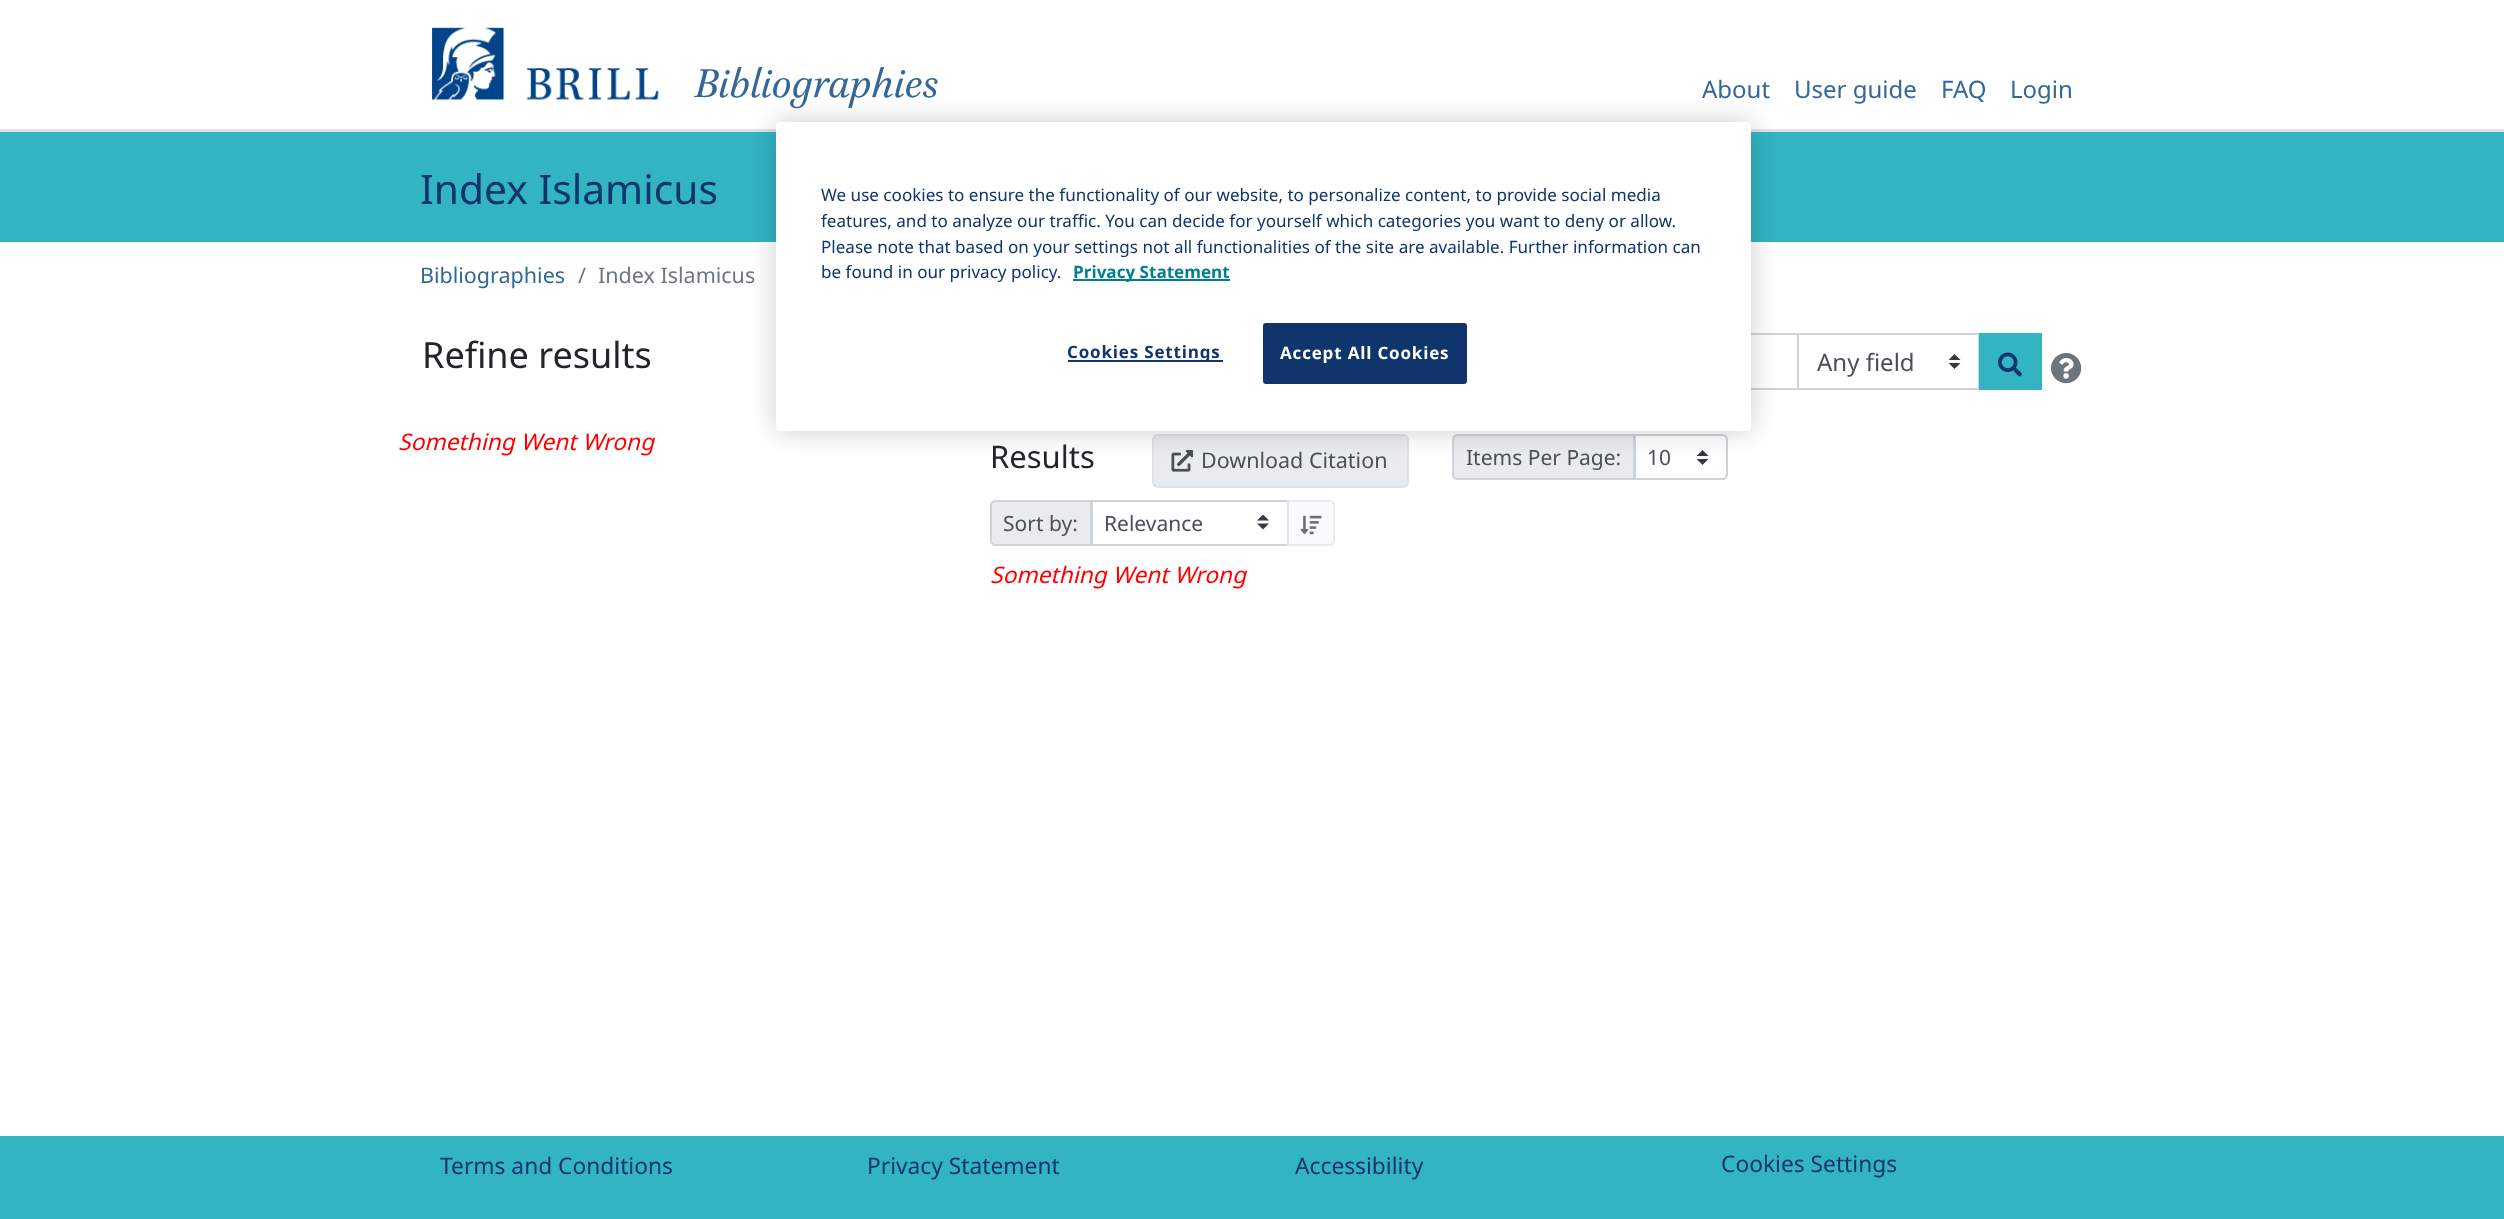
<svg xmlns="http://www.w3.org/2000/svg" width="2504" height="1219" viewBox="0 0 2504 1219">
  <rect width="100%" height="100%" fill="rgb(255,255,255)"/>
  <rect x="0" y="129" width="2504" height="3" fill="rgb(222,226,230)"/>
  <image x="432" y="27" width="227" height="74" href="pic1.png"/>
  <text x="695" y="97" font-family="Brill" font-size="45.5" font-style="italic" fill="rgb(51,102,153)">Bibliographies</text>
  <g font-family="Noto Sans" font-size="24" fill="rgb(51,102,153)">
    <text x="1702" y="98">About</text>
    <text x="1794" y="98">User guide</text>
    <text x="1941" y="98">FAQ</text>
    <text x="2010" y="98">Login</text>
  </g>
  <rect x="0" y="132" width="2504" height="110" fill="rgb(50,180,195)"/>
  <text x="420" y="204" font-family="Noto Sans" font-size="40.75" fill="rgb(15,53,108)">Index Islamicus</text>
  <rect x="990" y="334" width="808" height="55" fill="none" stroke="rgb(206,212,218)" stroke-width="2"/>
  <rect x="1153" y="435" width="255" height="52" rx="5" fill="rgb(233,236,239)" stroke="rgb(222,226,230)" stroke-width="2"/>
  <image x="1171" y="450" width="23" height="22" href="pic5.png"/>
  <path d="M1457 435H1634V479H1457C1455 479 1453 477 1453 475V439C1453 437 1455 435 1457 435Z" fill="rgb(233,236,239)" stroke="rgb(206,212,218)" stroke-width="2"/>
  <path d="M1634 434H1723C1726 434 1728 436 1728 439V475C1728 478 1726 480 1723 480H1634Z" fill="rgb(255,255,255)"/>
  <image x="1697" y="450" width="12" height="15" href="pic2.png"/>
  <path d="M1635 435H1723C1725 435 1727 437 1727 439V475C1727 477 1725 479 1723 479H1635Z" fill="none" stroke="rgb(206,212,218)" stroke-width="2"/>
  <rect x="776" y="122" width="975" height="309" rx="4" fill="rgba(0,0,0,0.2)" filter="blur(13.5px)"/>
  <rect x="776" y="122" width="975" height="309" rx="4" fill="rgb(255,255,255)"/>
  <g font-family="Noto Sans" font-size="17.07" fill="rgb(15,53,108)">
    <text>
      <tspan x="821" y="201">We use cookies to ensure the functionality of our website, to personalize content, to provide social media</tspan>
      <tspan x="821" y="227">features, and to analyze our traffic. You can decide for yourself which categories you want to deny or allow.</tspan>
      <tspan x="821" y="253">Please note that based on your settings not all functionalities of the site are available. Further information can</tspan>
      <tspan x="821" y="278">be found in our privacy policy.</tspan>
    </text>
  </g>
  <rect x="1073" y="279" width="157" height="2" fill="rgb(0,127,146)"/>
  <text x="1073" y="278" font-family="Noto Sans" font-size="17.07" font-weight="bold" fill="rgb(0,127,146)">Privacy Statement</text>
  <rect x="1068" y="360" width="155" height="2" fill="rgb(15,53,108)"/>
  <text x="1067" y="358" font-family="Noto Sans" font-size="17.07" font-weight="bold" letter-spacing="0.8" fill="rgb(15,53,108)">Cookies Settings</text>
  <rect x="1264" y="324" width="202" height="59" rx="2" fill="rgb(15,53,108)" stroke="rgb(15,53,108)" stroke-width="2"/>
  <text x="1280" y="359" font-family="Noto Sans" font-size="17.07" font-weight="bold" letter-spacing="0.8" fill="rgb(255,255,255)">Accept All Cookies</text>
  <text x="420" y="283" font-family="Noto Sans" font-size="21.5" fill="rgb(51,102,153)">Bibliographies</text>
  <g font-family="Noto Sans" font-size="21.5" fill="rgb(108,117,125)">
    <text x="578" y="283">/</text>
    <text x="598" y="283">Index Islamicus</text>
  </g>
  <text x="422" y="368" font-family="Noto Sans" font-size="36" fill="rgb(33,37,41)">Refine results</text>
  <text x="398" y="450" font-family="Noto Sans" font-size="22.75" font-style="italic" fill="rgb(255,0,0)">Something Went Wrong</text>
  <image x="1949" y="354" width="12" height="15" href="pic2.png"/>
  <rect x="1798" y="334" width="181" height="55" fill="none" stroke="rgb(206,212,218)" stroke-width="2"/>
  <text x="1817" y="371" font-family="Noto Sans" font-size="24" fill="rgb(73,80,87)">Any field</text>
  <rect x="1979" y="333" width="63" height="57" fill="rgb(50,180,195)"/>
  <image x="1998" y="352" width="24" height="25" href="pic3.png"/>
  <image x="2051" y="353" width="31" height="31" href="pic4.png"/>
  <text x="990" y="468" font-family="Noto Sans" font-size="31" fill="rgb(33,37,41)">Results</text>
  <text x="1201" y="468" font-family="Noto Sans" font-size="21.5" fill="rgb(73,80,87)">Download Citation</text>
  <g font-family="Noto Sans" font-size="21" fill="rgb(73,80,87)">
    <text x="1466" y="465">Items Per Page:</text>
    <text x="1647" y="465">10</text>
  </g>
  <path d="M995 501H1091V545H995C993 545 991 543 991 541V505C991 503 993 501 995 501Z" fill="rgb(233,236,239)" stroke="rgb(206,212,218)" stroke-width="2"/>
  <text x="1003" y="531" font-family="Noto Sans" font-size="21" fill="rgb(73,80,87)">Sort by:</text>
  <image x="1257" y="515" width="12" height="15" href="pic6.png"/>
  <rect x="1092" y="501" width="196" height="44" fill="none" stroke="rgb(206,212,218)" stroke-width="2"/>
  <text x="1104" y="531" font-family="Noto Sans" font-size="21" fill="rgb(73,80,87)">Relevance</text>
  <path d="M1287 500H1330C1333 500 1335 502 1335 505V541C1335 544 1333 546 1330 546H1287Z" fill="rgba(248,249,250,0.65)"/>
  <path d="M1288 501H1330C1332 501 1334 503 1334 505V541C1334 543 1332 545 1330 545H1288Z" fill="none" stroke="rgba(222,226,230,0.65)" stroke-width="2"/>
  <image x="1300" y="515" width="22" height="20" href="pic7.png"/>
  <text x="990" y="583" font-family="Noto Sans" font-size="22.75" font-style="italic" fill="rgb(255,0,0)">Something Went Wrong</text>
  <rect x="0" y="1136" width="2504" height="83" fill="rgb(50,180,195)"/>
  <g font-family="Noto Sans" font-size="22.75" fill="rgb(15,53,108)">
    <text x="440" y="1174">Terms and Conditions</text>
    <text x="867" y="1174">Privacy Statement</text>
    <text x="1295" y="1174">Accessibility</text>
    <text x="1721" y="1172">Cookies Settings</text>
  </g>
</svg>
